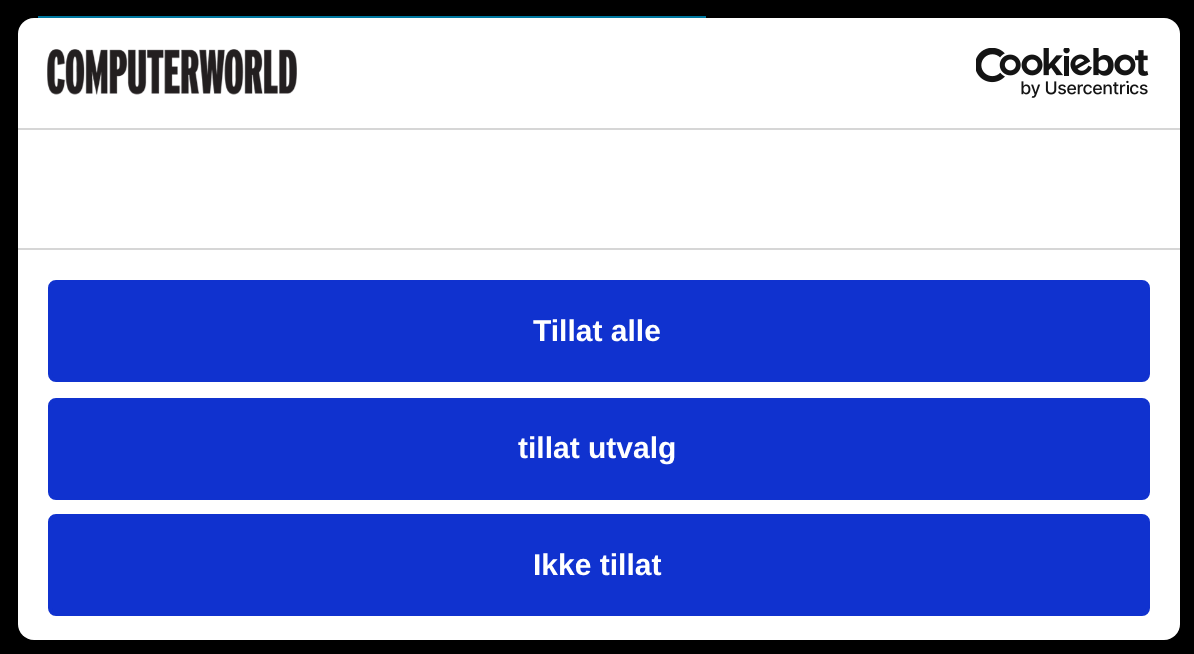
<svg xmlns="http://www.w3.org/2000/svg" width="1194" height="654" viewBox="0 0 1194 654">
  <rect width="100%" height="100%" fill="rgb(0,0,0)"/>
  <rect x="38" y="16" width="668" height="2" fill="rgb(0,120,160)"/>
  <rect x="18" y="18" width="1162" height="622" rx="16" fill="rgb(255,255,255)"/>
  <rect x="18" y="128" width="1162" height="2" fill="rgb(214,214,214)"/>
  <image x="47" y="49" width="250" height="46" href="pic1.png"/>
  <image x="976" y="48" width="173" height="50" href="pic2.png"/>
  <rect x="18" y="248" width="1162" height="2" fill="rgb(214,214,214)"/>
  <rect x="50" y="282" width="1098" height="98" rx="6" fill="rgb(16,50,207)" stroke="rgb(16,50,207)" stroke-width="4"/>
  <text x="533" y="341" font-family="Liberation Sans" font-size="30" font-weight="bold" fill="rgb(255,255,255)">Tillat alle</text>
  <rect x="50" y="400" width="1098" height="98" rx="6" fill="rgb(16,50,207)" stroke="rgb(16,50,207)" stroke-width="4"/>
  <text x="518" y="458" font-family="Liberation Sans" font-size="30" font-weight="bold" fill="rgb(255,255,255)">tillat utvalg</text>
  <rect x="50" y="516" width="1098" height="98" rx="6" fill="rgb(16,50,207)" stroke="rgb(16,50,207)" stroke-width="4"/>
  <text x="533" y="575" font-family="Liberation Sans" font-size="30" font-weight="bold" fill="rgb(255,255,255)">Ikke tillat</text>
</svg>
